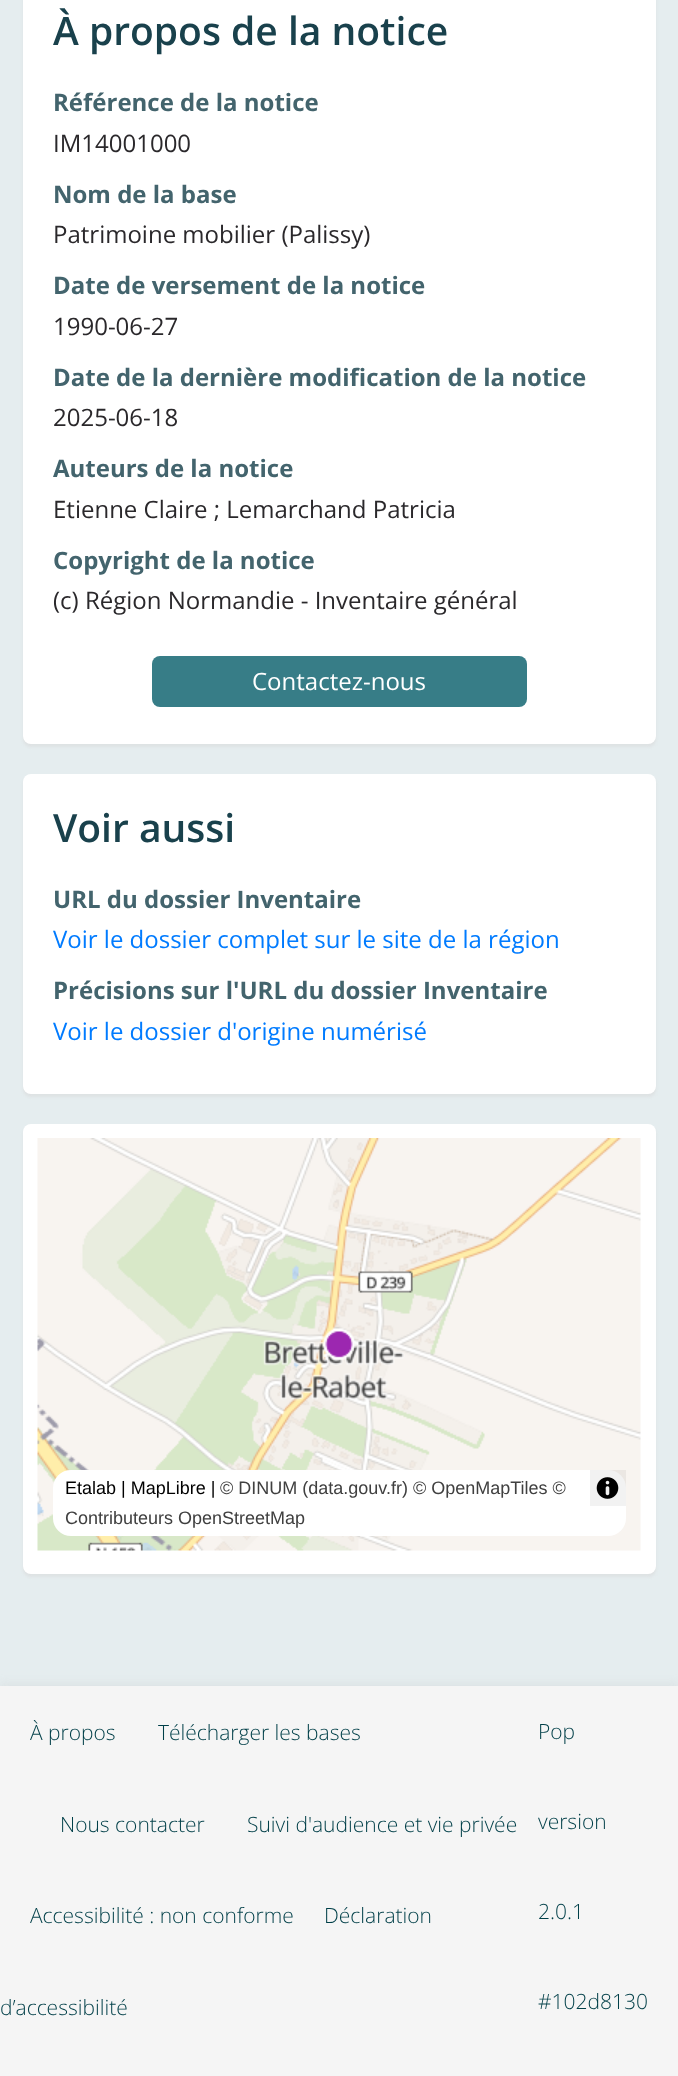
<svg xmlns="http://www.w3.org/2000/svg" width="678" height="2076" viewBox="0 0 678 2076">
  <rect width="100%" height="100%" fill="rgb(229,237,239)"/>
  <rect x="23" y="-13" width="633" height="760" rx="8" fill="rgba(215,215,215,0.5)" filter="blur(1.5px)"/>
  <rect x="23" y="-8" width="633" height="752" rx="8" fill="rgb(255,255,255)"/>
  <text x="53" y="45" font-family="Open Sans" font-size="39" font-weight="600" fill="rgb(25,65,76)">À propos de la notice</text>
  <text x="53" y="111" font-family="Open Sans" font-size="24" font-weight="bold" fill="rgb(67,100,109)">Référence de la notice</text>
  <text x="53" y="152" font-family="Open Sans" font-size="24" fill="rgb(42,40,43)">IM14001000</text>
  <text x="53" y="203" font-family="Open Sans" font-size="24" font-weight="bold" fill="rgb(67,100,109)">Nom de la base</text>
  <text x="53" y="243" font-family="Open Sans" font-size="24" fill="rgb(42,40,43)">Patrimoine mobilier (Palissy)</text>
  <text x="53" y="294" font-family="Open Sans" font-size="24" font-weight="bold" fill="rgb(67,100,109)">Date de versement de la notice</text>
  <text x="53" y="335" font-family="Open Sans" font-size="24" fill="rgb(42,40,43)">1990-06-27</text>
  <text x="53" y="386" font-family="Open Sans" font-size="24" font-weight="bold" fill="rgb(67,100,109)">Date de la dernière modification de la notice</text>
  <text x="53" y="426" font-family="Open Sans" font-size="24" fill="rgb(42,40,43)">2025-06-18</text>
  <text x="53" y="477" font-family="Open Sans" font-size="24" font-weight="bold" fill="rgb(67,100,109)">Auteurs de la notice</text>
  <text x="53" y="518" font-family="Open Sans" font-size="24" fill="rgb(42,40,43)">Etienne Claire ; Lemarchand Patricia</text>
  <text x="53" y="569" font-family="Open Sans" font-size="24" font-weight="bold" fill="rgb(67,100,109)">Copyright de la notice</text>
  <text x="53" y="609" font-family="Open Sans" font-size="24" fill="rgb(42,40,43)">(c) Région Normandie - Inventaire général</text>
  <rect x="152" y="656" width="375" height="51" rx="8" fill="rgb(55,125,135)"/>
  <text x="252" y="690" font-family="Open Sans" font-size="24" fill="rgb(255,255,255)">Contactez-nous</text>
  <rect x="23" y="777" width="633" height="320" rx="8" fill="rgba(215,215,215,0.5)" filter="blur(1.5px)"/>
  <rect x="23" y="774" width="633" height="320" rx="8" fill="rgb(255,255,255)"/>
  <text x="53" y="842" font-family="Open Sans" font-size="39" font-weight="600" fill="rgb(25,65,76)">Voir aussi</text>
  <text x="53" y="908" font-family="Open Sans" font-size="24" font-weight="bold" fill="rgb(67,100,109)">URL du dossier Inventaire</text>
  <text x="53" y="948" font-family="Open Sans" font-size="24" fill="rgb(0,123,255)">Voir le dossier complet sur le site de la région</text>
  <text x="53" y="999" font-family="Open Sans" font-size="24" font-weight="bold" fill="rgb(67,100,109)">Précisions sur l'URL du dossier Inventaire</text>
  <text x="53" y="1040" font-family="Open Sans" font-size="24" fill="rgb(0,123,255)">Voir le dossier d'origine numérisé</text>
  <rect x="23" y="1127" width="633" height="450" rx="8" fill="rgba(215,215,215,0.5)" filter="blur(1.5px)"/>
  <rect x="23" y="1124" width="633" height="450" rx="8" fill="rgb(255,255,255)"/>
  <image x="37" y="1138" width="604" height="413" href="pic1.png"/>
  <rect x="53" y="1470" width="573" height="66" rx="18" fill="rgb(255,255,255)"/>
  <text x="65" y="1494" font-family="Liberation Sans" font-size="18" fill="rgb(0,0,0)">Etalab | MapLibre |</text>
  <g font-family="Liberation Sans" font-size="18" fill="rgb(64,64,64)">
    <text x="220" y="1494">© DINUM (data.gouv.fr) © OpenMapTiles ©</text>
    <text x="65" y="1524">Contributeurs OpenStreetMap</text>
  </g>
  <rect x="590" y="1470" width="36" height="36" fill="rgba(0,0,0,0.05)"/>
  <image x="596" y="1477" width="23" height="22" href="pic2.png"/>
  <rect x="0" y="1683" width="678" height="390" fill="rgba(189,189,189,0.2)" filter="blur(4.5px)"/>
  <rect x="0" y="1686" width="678" height="390" fill="rgb(245,245,245)"/>
  <g font-family="Open Sans" font-size="21" font-weight="300" fill="rgb(0,63,72)">
    <text x="30" y="1740">À propos</text>
    <text x="158" y="1740">Télécharger les bases</text>
    <text x="60" y="1832">Nous contacter</text>
    <text x="247" y="1832">Suivi d'audience et vie privée</text>
    <text x="30" y="1923">Accessibilité : non conforme</text>
    <text x="324" y="1923">Déclaration</text>
    <text x="0" y="2015">d’accessibilité</text>
    <text x="538" y="1739">Pop</text>
    <text x="538" y="1829">version</text>
    <text x="538" y="1919">2.0.1</text>
    <text x="538" y="2009">#102d8130</text>
  </g>
</svg>
